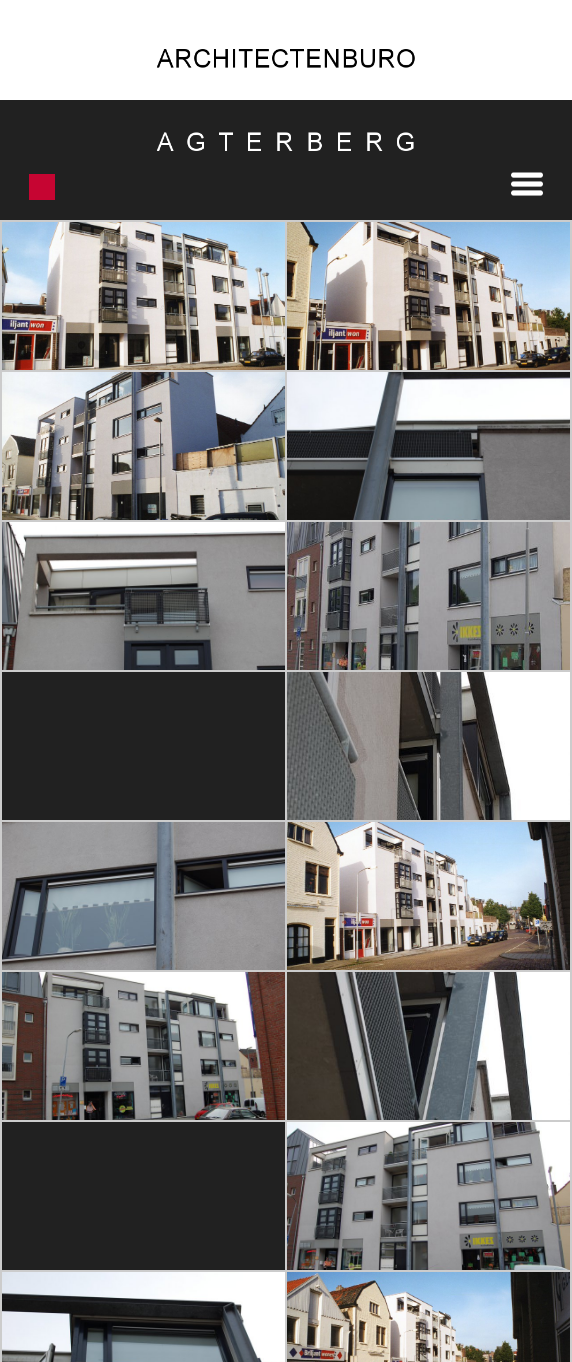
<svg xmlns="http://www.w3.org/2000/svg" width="572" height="1362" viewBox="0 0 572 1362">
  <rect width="100%" height="100%" fill="rgb(33,33,33)"/>
  <rect x="0" y="0" width="572" height="100" fill="rgb(255,255,255)"/>
  <image x="156" y="49" width="259" height="102" href="pic1.png"/>
  <rect x="29" y="174" width="26" height="26" fill="rgb(198,5,50)"/>
  <image x="511" y="172" width="32" height="24" href="pic2.png"/>
  <rect x="0.5" y="220.5" width="571" height="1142" fill="none" stroke="rgb(204,204,204)"/>
  <rect x="1.5" y="221.5" width="284" height="149" fill="none" stroke="rgb(204,204,204)"/>
  <image x="2" y="222" width="283" height="148" href="pic3.png"/>
  <rect x="286.5" y="221.5" width="284" height="149" fill="none" stroke="rgb(204,204,204)"/>
  <image x="287" y="222" width="283" height="148" href="pic4.png"/>
  <rect x="1.5" y="371.5" width="284" height="149" fill="none" stroke="rgb(204,204,204)"/>
  <image x="2" y="372" width="283" height="148" href="pic5.png"/>
  <rect x="286.5" y="371.5" width="284" height="149" fill="none" stroke="rgb(204,204,204)"/>
  <image x="287" y="372" width="283" height="148" href="pic6.png"/>
  <rect x="1.5" y="521.5" width="284" height="149" fill="none" stroke="rgb(204,204,204)"/>
  <image x="2" y="522" width="283" height="148" href="pic7.png"/>
  <rect x="286.5" y="521.5" width="284" height="149" fill="none" stroke="rgb(204,204,204)"/>
  <image x="287" y="522" width="283" height="148" href="pic8.png"/>
  <rect x="1.5" y="671.5" width="284" height="149" fill="none" stroke="rgb(204,204,204)"/>
  <rect x="286.5" y="671.5" width="284" height="149" fill="none" stroke="rgb(204,204,204)"/>
  <image x="287" y="672" width="283" height="148" href="pic9.png"/>
  <rect x="1.5" y="821.5" width="284" height="149" fill="none" stroke="rgb(204,204,204)"/>
  <image x="2" y="822" width="283" height="148" href="pic10.png"/>
  <rect x="286.5" y="821.5" width="284" height="149" fill="none" stroke="rgb(204,204,204)"/>
  <image x="287" y="822" width="283" height="148" href="pic11.png"/>
  <rect x="1.5" y="971.5" width="284" height="149" fill="none" stroke="rgb(204,204,204)"/>
  <image x="2" y="972" width="283" height="148" href="pic12.png"/>
  <rect x="286.5" y="971.5" width="284" height="149" fill="none" stroke="rgb(204,204,204)"/>
  <image x="287" y="972" width="283" height="148" href="pic13.png"/>
  <rect x="1.5" y="1121.5" width="284" height="149" fill="none" stroke="rgb(204,204,204)"/>
  <rect x="286.5" y="1121.5" width="284" height="149" fill="none" stroke="rgb(204,204,204)"/>
  <image x="287" y="1122" width="283" height="148" href="pic14.png"/>
  <rect x="1.5" y="1271.5" width="284" height="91" fill="none" stroke="rgb(204,204,204)"/>
  <image x="2" y="1272" width="283" height="90" href="pic15.png"/>
  <rect x="286.5" y="1271.5" width="284" height="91" fill="none" stroke="rgb(204,204,204)"/>
  <image x="287" y="1272" width="283" height="90" href="pic16.png"/>
</svg>
